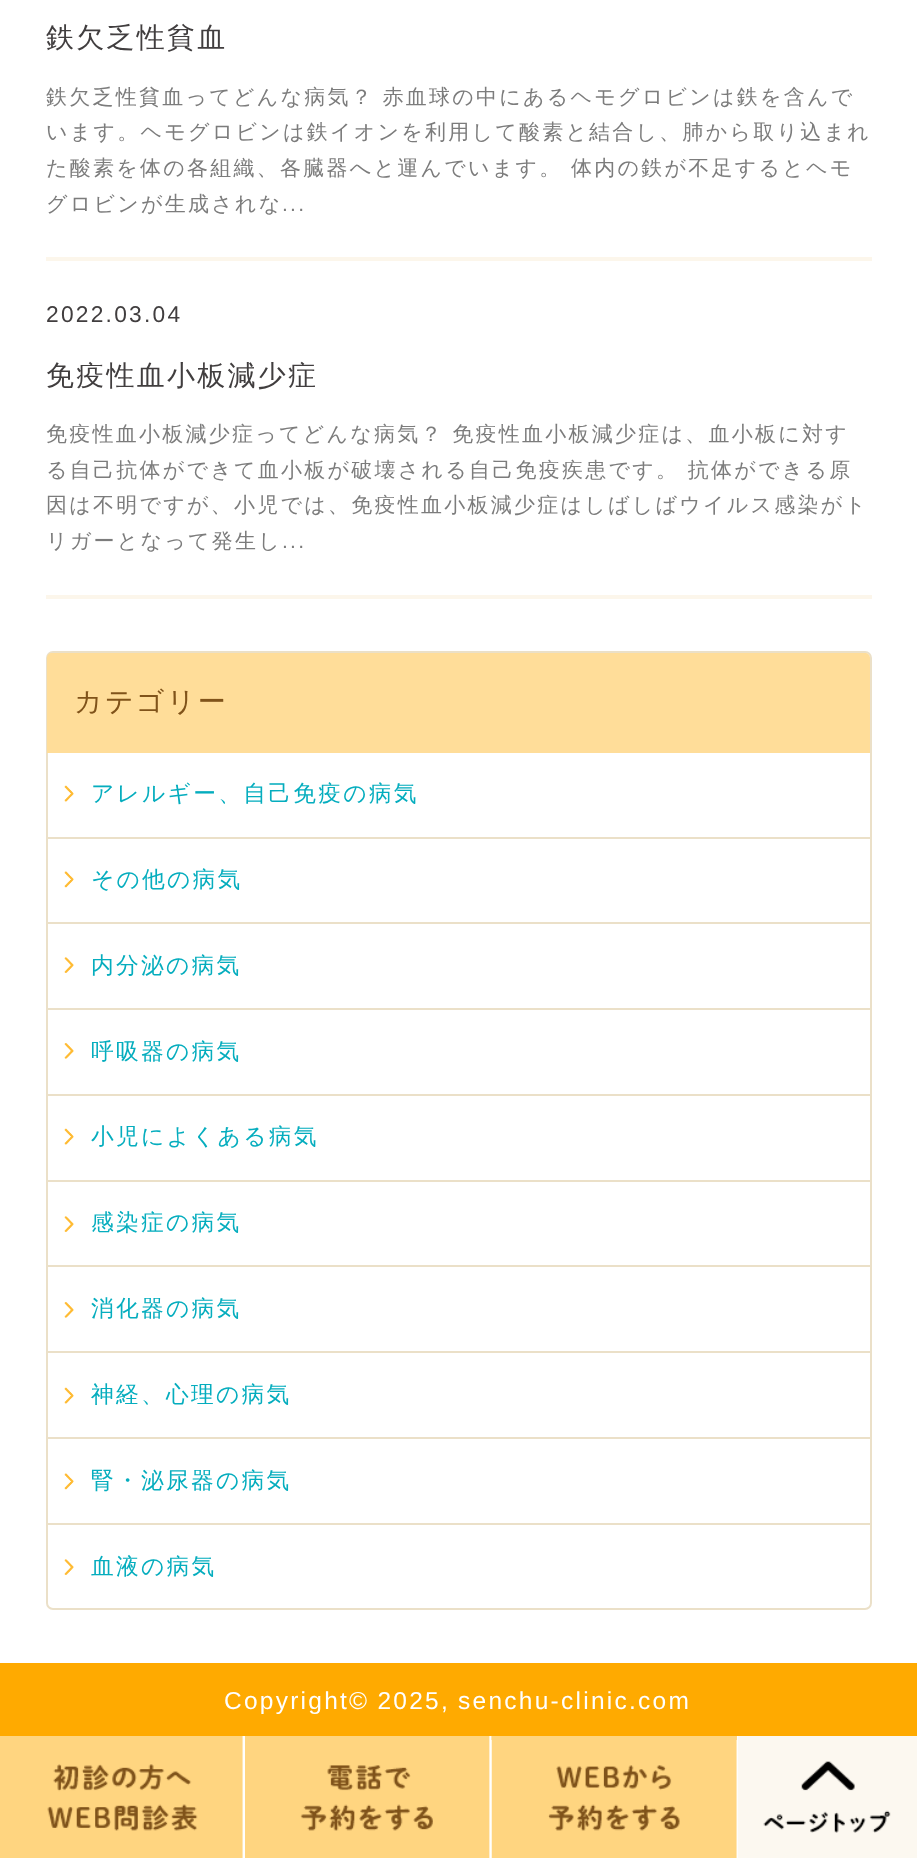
<svg xmlns="http://www.w3.org/2000/svg" width="917" height="1858" viewBox="0 0 917 1858">
  <rect width="100%" height="100%" fill="rgb(255,255,255)"/>
  <rect x="46" y="257" width="826" height="4" fill="rgb(252,246,235)"/>
  <text x="46" y="47" font-family="WenQuanYi Zen Hei" font-size="28" font-weight="500" letter-spacing="2.25" fill="rgb(65,62,63)">鉄欠乏性貧血</text>
  <g font-family="WenQuanYi Zen Hei" font-size="21" font-weight="500" letter-spacing="2.25" fill="rgb(124,124,124)">
    <text>
      <tspan x="46" y="104">鉄欠乏性貧血ってどんな病気？ 赤血球の中にあるヘモグロビンは鉄を含んで</tspan>
      <tspan x="46" y="139">います。ヘモグロビンは鉄イオンを利用して酸素と結合し、肺から取り込まれ</tspan>
      <tspan x="46" y="175">た酸素を体の各組織、各臓器へと運んでいます。 体内の鉄が不足するとヘモ</tspan>
      <tspan x="46" y="211">グロビンが生成されな</tspan>
    </text>
  </g>
  <text x="282" y="211" font-family="Liberation Sans" font-size="21" letter-spacing="2.25" fill="rgb(124,124,124)">...</text>
  <rect x="46" y="595" width="826" height="4" fill="rgb(252,246,235)"/>
  <text x="46" y="322" font-family="Liberation Sans" font-size="22.75" letter-spacing="2.25" fill="rgb(65,62,63)">2022.03.04</text>
  <text x="46" y="385" font-family="WenQuanYi Zen Hei" font-size="28" font-weight="500" letter-spacing="2.25" fill="rgb(65,62,63)">免疫性血小板減少症</text>
  <g font-family="WenQuanYi Zen Hei" font-size="21" font-weight="500" letter-spacing="2.25" fill="rgb(124,124,124)">
    <text>
      <tspan x="46" y="441">免疫性血小板減少症ってどんな病気？ 免疫性血小板減少症は、血小板に対す</tspan>
      <tspan x="46" y="477">る自己抗体ができて血小板が破壊される自己免疫疾患です。 抗体ができる原</tspan>
      <tspan x="46" y="512">因は不明ですが、小児では、免疫性血小板減少症はしばしばウイルス感染がト</tspan>
      <tspan x="46" y="548">リガーとなって発生し</tspan>
    </text>
  </g>
  <text x="282" y="548" font-family="Liberation Sans" font-size="21" letter-spacing="2.25" fill="rgb(124,124,124)">...</text>
  <rect x="47" y="652" width="824" height="957" rx="6" fill="none" stroke="rgb(235,224,200)" stroke-width="2"/>
  <path d="M52 653H865C868 653 870 655 870 658V753H47V658C47 655 49 653 52 653Z" fill="rgb(255,221,153)"/>
  <text x="74" y="711" font-family="WenQuanYi Zen Hei" font-size="28" font-weight="500" letter-spacing="2.25" fill="rgb(128,83,26)">カテゴリー</text>
  <image x="64" y="785" width="10" height="17" href="pic1.png"/>
  <rect x="47" y="837" width="823" height="2" fill="rgb(235,224,200)"/>
  <text x="91" y="801" font-family="WenQuanYi Zen Hei" font-size="22.75" font-weight="500" letter-spacing="2.25" fill="rgb(5,173,190)">アレルギー、自己免疫の病気</text>
  <image x="64" y="871" width="10" height="17" href="pic2.png"/>
  <rect x="47" y="922" width="823" height="2" fill="rgb(235,224,200)"/>
  <text x="91" y="887" font-family="WenQuanYi Zen Hei" font-size="22.75" font-weight="500" letter-spacing="2.25" fill="rgb(5,173,190)">その他の病気</text>
  <image x="64" y="957" width="10" height="16" href="pic3.png"/>
  <rect x="47" y="1008" width="823" height="2" fill="rgb(235,224,200)"/>
  <text x="91" y="973" font-family="WenQuanYi Zen Hei" font-size="22.75" font-weight="500" letter-spacing="2.25" fill="rgb(5,173,190)">内分泌の病気</text>
  <image x="64" y="1043" width="10" height="16" href="pic4.png"/>
  <rect x="47" y="1094" width="823" height="2" fill="rgb(235,224,200)"/>
  <text x="91" y="1059" font-family="WenQuanYi Zen Hei" font-size="22.75" font-weight="500" letter-spacing="2.25" fill="rgb(5,173,190)">呼吸器の病気</text>
  <image x="64" y="1128" width="10" height="17" href="pic1.png"/>
  <rect x="47" y="1180" width="823" height="2" fill="rgb(235,224,200)"/>
  <text x="91" y="1144" font-family="WenQuanYi Zen Hei" font-size="22.75" font-weight="500" letter-spacing="2.25" fill="rgb(5,173,190)">小児によくある病気</text>
  <image x="64" y="1216" width="10" height="16" href="pic3.png"/>
  <rect x="47" y="1265" width="823" height="2" fill="rgb(235,224,200)"/>
  <text x="91" y="1230" font-family="WenQuanYi Zen Hei" font-size="22.75" font-weight="500" letter-spacing="2.25" fill="rgb(5,173,190)">感染症の病気</text>
  <image x="64" y="1302" width="10" height="16" href="pic4.png"/>
  <rect x="47" y="1351" width="823" height="2" fill="rgb(235,224,200)"/>
  <text x="91" y="1316" font-family="WenQuanYi Zen Hei" font-size="22.75" font-weight="500" letter-spacing="2.25" fill="rgb(5,173,190)">消化器の病気</text>
  <image x="64" y="1387" width="10" height="17" href="pic1.png"/>
  <rect x="47" y="1437" width="823" height="2" fill="rgb(235,224,200)"/>
  <text x="91" y="1402" font-family="WenQuanYi Zen Hei" font-size="22.75" font-weight="500" letter-spacing="2.25" fill="rgb(5,173,190)">神経、心理の病気</text>
  <image x="64" y="1473" width="10" height="17" href="pic2.png"/>
  <rect x="47" y="1523" width="823" height="2" fill="rgb(235,224,200)"/>
  <text x="91" y="1488" font-family="WenQuanYi Zen Hei" font-size="22.75" font-weight="500" letter-spacing="2.25" fill="rgb(5,173,190)">腎・泌尿器の病気</text>
  <image x="64" y="1559" width="10" height="16" href="pic3.png"/>
  <text x="91" y="1574" font-family="WenQuanYi Zen Hei" font-size="22.75" font-weight="500" letter-spacing="2.25" fill="rgb(5,173,190)">血液の病気</text>
  <rect x="0" y="1663" width="917" height="77" fill="rgb(255,170,0)"/>
  <text x="224" y="1709" word-spacing="-1" font-family="Liberation Sans" font-size="24.5" letter-spacing="2.25" fill="rgb(255,255,255)">Copyright©︎ 2025, senchu-clinic.com</text>
  <image x="0" y="1736" width="245" height="122" href="pic5.png"/>
  <image x="245" y="1736" width="247" height="122" href="pic6.png"/>
  <image x="491" y="1736" width="246" height="122" href="pic7.png"/>
  <image x="736" y="1736" width="181" height="122" href="pic8.png"/>
</svg>
